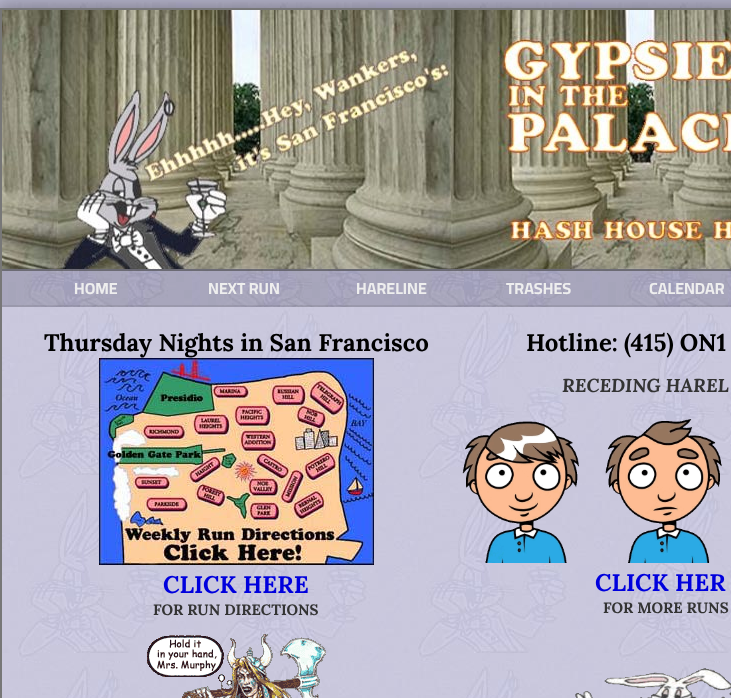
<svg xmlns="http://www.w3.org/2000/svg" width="731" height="698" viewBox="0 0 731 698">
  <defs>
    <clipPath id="clip1"><rect x="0" y="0" width="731" height="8"/></clipPath>
  </defs>
  <rect width="100%" height="100%" fill="rgb(191,190,214)"/>
  <image x="0" y="2" width="731" height="305" href="pic1.png"/>
  <g clip-path="url(#clip1)">
    <rect x="-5" y="3" width="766" height="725" fill="rgba(0,0,0,0.33)" filter="blur(10px)"/>
  </g>
  <rect x="1" y="9" width="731" height="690" fill="none" stroke="rgb(119,119,119)" stroke-width="2"/>
  <image x="2" y="10" width="729" height="259" href="pic2.png"/>
  <rect x="2" y="269" width="729" height="38" fill="rgba(0,0,0,0.12)"/>
  <rect x="2" y="269" width="729" height="2" fill="rgba(68,68,68,0.6)"/>
  <rect x="2" y="305" width="729" height="2" fill="rgba(68,68,68,0.13)"/>
  <g font-family="Cairo" font-size="16" font-weight="bold" fill="rgb(238,238,238)">
    <text x="74" y="294">HOME</text>
    <text x="208" y="294">NEXT RUN</text>
    <text x="356" y="294">HARELINE</text>
    <text x="506" y="294">TRASHES</text>
    <text x="649" y="294">CALENDAR</text>
  </g>
  <image x="2" y="307" width="729" height="391" href="pic3.png"/>
  <g font-family="Lora" font-size="24" font-weight="bold" fill="rgb(0,0,0)">
    <text x="44" y="351">Thursday Nights in San Francisco</text>
    <text x="526" y="351">Hotline: (415) ON1</text>
  </g>
  <image x="99" y="358" width="275" height="207" href="pic4.png"/>
  <text x="163" y="593" font-family="Lora" font-size="24" font-weight="bold" fill="rgb(0,0,221)">CLICK HERE</text>
  <text x="153" y="615" font-family="Lora" font-size="15" font-weight="bold" fill="rgb(51,51,51)">FOR RUN DIRECTIONS</text>
  <image x="147" y="634" width="179" height="64" href="pic5.png"/>
  <text x="562" y="392" font-family="Lora" font-size="18.75" font-weight="bold" font-style="italic" fill="rgb(51,51,51)">RECEDING HAREL</text>
  <image x="462" y="419" width="260" height="144" href="pic6.png"/>
  <text x="595" y="591" font-family="Lora" font-size="24" font-weight="bold" fill="rgb(0,0,221)">CLICK HER</text>
  <text x="603" y="613" font-family="Lora" font-size="15" font-weight="bold" fill="rgb(51,51,51)">FOR MORE RUNS</text>
  <image x="575" y="668" width="156" height="30" href="pic7.png"/>
</svg>
